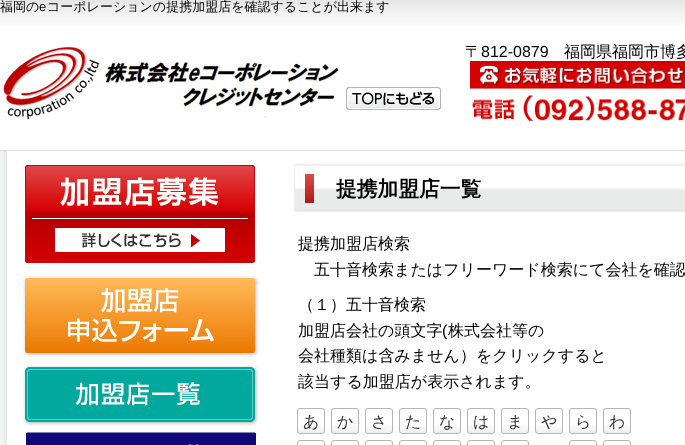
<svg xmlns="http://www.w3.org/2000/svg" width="685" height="445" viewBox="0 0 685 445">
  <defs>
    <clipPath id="clip1"><rect x="297" y="408" width="28" height="26" rx="3"/></clipPath>
    <linearGradient id="g1" gradientUnits="userSpaceOnUse" x1="311" y1="409" x2="311" y2="433"><stop offset="0.6" stop-color="rgb(255,255,255)"/><stop offset="1" stop-color="rgb(239,239,239)"/></linearGradient>
    <clipPath id="clip2"><rect x="331" y="408" width="28" height="26" rx="3"/></clipPath>
    <linearGradient id="g2" gradientUnits="userSpaceOnUse" x1="345" y1="409" x2="345" y2="433"><stop offset="0.6" stop-color="rgb(255,255,255)"/><stop offset="1" stop-color="rgb(239,239,239)"/></linearGradient>
    <clipPath id="clip3"><rect x="365" y="408" width="28" height="26" rx="3"/></clipPath>
    <linearGradient id="g3" gradientUnits="userSpaceOnUse" x1="379" y1="409" x2="379" y2="433"><stop offset="0.6" stop-color="rgb(255,255,255)"/><stop offset="1" stop-color="rgb(239,239,239)"/></linearGradient>
    <clipPath id="clip4"><rect x="399" y="408" width="28" height="26" rx="3"/></clipPath>
    <linearGradient id="g4" gradientUnits="userSpaceOnUse" x1="413" y1="409" x2="413" y2="433"><stop offset="0.6" stop-color="rgb(255,255,255)"/><stop offset="1" stop-color="rgb(239,239,239)"/></linearGradient>
    <clipPath id="clip5"><rect x="433" y="408" width="28" height="26" rx="3"/></clipPath>
    <linearGradient id="g5" gradientUnits="userSpaceOnUse" x1="447" y1="409" x2="447" y2="433"><stop offset="0.6" stop-color="rgb(255,255,255)"/><stop offset="1" stop-color="rgb(239,239,239)"/></linearGradient>
    <clipPath id="clip6"><rect x="467" y="408" width="28" height="26" rx="3"/></clipPath>
    <linearGradient id="g6" gradientUnits="userSpaceOnUse" x1="481" y1="409" x2="481" y2="433"><stop offset="0.6" stop-color="rgb(255,255,255)"/><stop offset="1" stop-color="rgb(239,239,239)"/></linearGradient>
    <clipPath id="clip7"><rect x="501" y="408" width="28" height="26" rx="3"/></clipPath>
    <linearGradient id="g7" gradientUnits="userSpaceOnUse" x1="515" y1="409" x2="515" y2="433"><stop offset="0.6" stop-color="rgb(255,255,255)"/><stop offset="1" stop-color="rgb(239,239,239)"/></linearGradient>
    <clipPath id="clip8"><rect x="535" y="408" width="28" height="26" rx="3"/></clipPath>
    <linearGradient id="g8" gradientUnits="userSpaceOnUse" x1="549" y1="409" x2="549" y2="433"><stop offset="0.6" stop-color="rgb(255,255,255)"/><stop offset="1" stop-color="rgb(239,239,239)"/></linearGradient>
    <clipPath id="clip9"><rect x="569" y="408" width="28" height="26" rx="3"/></clipPath>
    <linearGradient id="g9" gradientUnits="userSpaceOnUse" x1="583" y1="409" x2="583" y2="433"><stop offset="0.6" stop-color="rgb(255,255,255)"/><stop offset="1" stop-color="rgb(239,239,239)"/></linearGradient>
    <clipPath id="clip10"><rect x="603" y="408" width="28" height="26" rx="3"/></clipPath>
    <linearGradient id="g10" gradientUnits="userSpaceOnUse" x1="617" y1="409" x2="617" y2="433"><stop offset="0.6" stop-color="rgb(255,255,255)"/><stop offset="1" stop-color="rgb(239,239,239)"/></linearGradient>
  </defs>
  <rect width="100%" height="100%" fill="rgb(255,255,255)"/>
  <image x="0" y="0" width="685" height="26" href="pic1.png"/>
  <text x="0" y="11" font-family="WenQuanYi Zen Hei" font-size="13" font-weight="500" fill="rgb(0,0,0)">福岡の</text>
  <text x="39" y="11" font-family="Liberation Sans" font-size="13" fill="rgb(0,0,0)">e</text>
  <text x="47" y="11" font-family="WenQuanYi Zen Hei" font-size="13" font-weight="500" fill="rgb(0,0,0)">コーポレーションの提携加盟店を確認することが出来ます</text>
  <image x="3" y="46" width="439" height="74" href="pic2.png"/>
  <text x="465" y="57" font-family="WenQuanYi Zen Hei" font-size="16" font-weight="500" fill="rgb(0,0,0)">〒</text>
  <text x="481" y="57" font-family="Liberation Sans" font-size="16" fill="rgb(0,0,0)">812-0879</text>
  <text x="564" y="57" font-family="WenQuanYi Zen Hei" font-size="16" font-weight="500" fill="rgb(0,0,0)">福岡県福岡市博多</text>
  <image x="470" y="61" width="215" height="61" href="pic3.png"/>
  <rect x="0" y="151" width="4" height="294" fill="rgb(241,242,242)"/>
  <rect x="0" y="150" width="685" height="1" fill="rgb(223,223,223)"/>
  <image x="4" y="151" width="681" height="294" href="pic4.png"/>
  <image x="25" y="162" width="235" height="101" href="pic5.png"/>
  <image x="22" y="275" width="238" height="82" href="pic6.png"/>
  <image x="22" y="365" width="237" height="61" href="pic7.png"/>
  <image x="26" y="432" width="231" height="13" href="pic8.png"/>
  <image x="293" y="163" width="392" height="50" href="pic9.png"/>
  <text x="336" y="196" font-family="WenQuanYi Zen Hei" font-size="20.75" font-weight="bold" fill="rgb(0,0,0)">提携加盟店一覧</text>
  <g font-family="WenQuanYi Zen Hei" font-size="16" font-weight="500" fill="rgb(0,0,0)">
    <text x="298" y="249">提携加盟店検索</text>
    <text x="314" y="275">五十音検索またはフリーワード検索にて会社を確認</text>
    <text>
      <tspan x="298" y="310">（１）五十音検索</tspan>
      <tspan x="298" y="336">加盟店会社の頭文字</tspan>
    </text>
  </g>
  <text x="442" y="336" font-family="Liberation Sans" font-size="16" fill="rgb(0,0,0)">(</text>
  <g font-family="WenQuanYi Zen Hei" font-size="16" font-weight="500" fill="rgb(0,0,0)">
    <text x="448" y="336">株式会社等の</text>
    <text>
      <tspan x="298" y="361">会社種類は含みません）をクリックすると</tspan>
      <tspan x="298" y="387">該当する加盟店が表示されます。</tspan>
    </text>
  </g>
  <g clip-path="url(#clip1)">
    <rect x="297" y="409" width="28" height="24" fill="url(#g1)"/>
  </g>
  <rect x="297.5" y="408.5" width="27" height="25" rx="2.5" fill="none" stroke="rgb(181,181,181)"/>
  <text x="303" y="427" font-family="WenQuanYi Zen Hei" font-size="16" font-weight="500" fill="rgb(51,51,51)">あ</text>
  <g clip-path="url(#clip2)">
    <rect x="331" y="409" width="28" height="24" fill="url(#g2)"/>
  </g>
  <rect x="331.5" y="408.5" width="27" height="25" rx="2.5" fill="none" stroke="rgb(181,181,181)"/>
  <text x="337" y="427" font-family="WenQuanYi Zen Hei" font-size="16" font-weight="500" fill="rgb(51,51,51)">か</text>
  <g clip-path="url(#clip3)">
    <rect x="365" y="409" width="28" height="24" fill="url(#g3)"/>
  </g>
  <rect x="365.5" y="408.5" width="27" height="25" rx="2.5" fill="none" stroke="rgb(181,181,181)"/>
  <text x="371" y="427" font-family="WenQuanYi Zen Hei" font-size="16" font-weight="500" fill="rgb(51,51,51)">さ</text>
  <g clip-path="url(#clip4)">
    <rect x="399" y="409" width="28" height="24" fill="url(#g4)"/>
  </g>
  <rect x="399.5" y="408.5" width="27" height="25" rx="2.5" fill="none" stroke="rgb(181,181,181)"/>
  <text x="405" y="427" font-family="WenQuanYi Zen Hei" font-size="16" font-weight="500" fill="rgb(51,51,51)">た</text>
  <g clip-path="url(#clip5)">
    <rect x="433" y="409" width="28" height="24" fill="url(#g5)"/>
  </g>
  <rect x="433.5" y="408.5" width="27" height="25" rx="2.5" fill="none" stroke="rgb(181,181,181)"/>
  <text x="439" y="427" font-family="WenQuanYi Zen Hei" font-size="16" font-weight="500" fill="rgb(51,51,51)">な</text>
  <g clip-path="url(#clip6)">
    <rect x="467" y="409" width="28" height="24" fill="url(#g6)"/>
  </g>
  <rect x="467.5" y="408.5" width="27" height="25" rx="2.5" fill="none" stroke="rgb(181,181,181)"/>
  <text x="473" y="427" font-family="WenQuanYi Zen Hei" font-size="16" font-weight="500" fill="rgb(51,51,51)">は</text>
  <g clip-path="url(#clip7)">
    <rect x="501" y="409" width="28" height="24" fill="url(#g7)"/>
  </g>
  <rect x="501.5" y="408.5" width="27" height="25" rx="2.5" fill="none" stroke="rgb(181,181,181)"/>
  <text x="507" y="427" font-family="WenQuanYi Zen Hei" font-size="16" font-weight="500" fill="rgb(51,51,51)">ま</text>
  <g clip-path="url(#clip8)">
    <rect x="535" y="409" width="28" height="24" fill="url(#g8)"/>
  </g>
  <rect x="535.5" y="408.5" width="27" height="25" rx="2.5" fill="none" stroke="rgb(181,181,181)"/>
  <text x="541" y="427" font-family="WenQuanYi Zen Hei" font-size="16" font-weight="500" fill="rgb(51,51,51)">や</text>
  <g clip-path="url(#clip9)">
    <rect x="569" y="409" width="28" height="24" fill="url(#g9)"/>
  </g>
  <rect x="569.5" y="408.5" width="27" height="25" rx="2.5" fill="none" stroke="rgb(181,181,181)"/>
  <text x="575" y="427" font-family="WenQuanYi Zen Hei" font-size="16" font-weight="500" fill="rgb(51,51,51)">ら</text>
  <g clip-path="url(#clip10)">
    <rect x="603" y="409" width="28" height="24" fill="url(#g10)"/>
  </g>
  <rect x="603.5" y="408.5" width="27" height="25" rx="2.5" fill="none" stroke="rgb(181,181,181)"/>
  <text x="609" y="427" font-family="WenQuanYi Zen Hei" font-size="16" font-weight="500" fill="rgb(51,51,51)">わ</text>
  <rect x="297.5" y="440.5" width="27" height="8" rx="2.5" fill="none" stroke="rgb(181,181,181)"/>
  <rect x="331.5" y="440.5" width="27" height="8" rx="2.5" fill="none" stroke="rgb(181,181,181)"/>
  <rect x="365.5" y="440.5" width="27" height="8" rx="2.5" fill="none" stroke="rgb(181,181,181)"/>
  <rect x="399.5" y="440.5" width="27" height="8" rx="2.5" fill="none" stroke="rgb(181,181,181)"/>
  <rect x="433.5" y="440.5" width="27" height="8" rx="2.5" fill="none" stroke="rgb(181,181,181)"/>
  <rect x="467.5" y="440.5" width="27" height="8" rx="2.5" fill="none" stroke="rgb(181,181,181)"/>
  <rect x="501.5" y="440.5" width="27" height="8" rx="2.5" fill="none" stroke="rgb(181,181,181)"/>
  <rect x="569.5" y="440.5" width="27" height="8" rx="2.5" fill="none" stroke="rgb(181,181,181)"/>
  <rect x="603.5" y="440.5" width="27" height="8" rx="2.5" fill="none" stroke="rgb(181,181,181)"/>
</svg>
